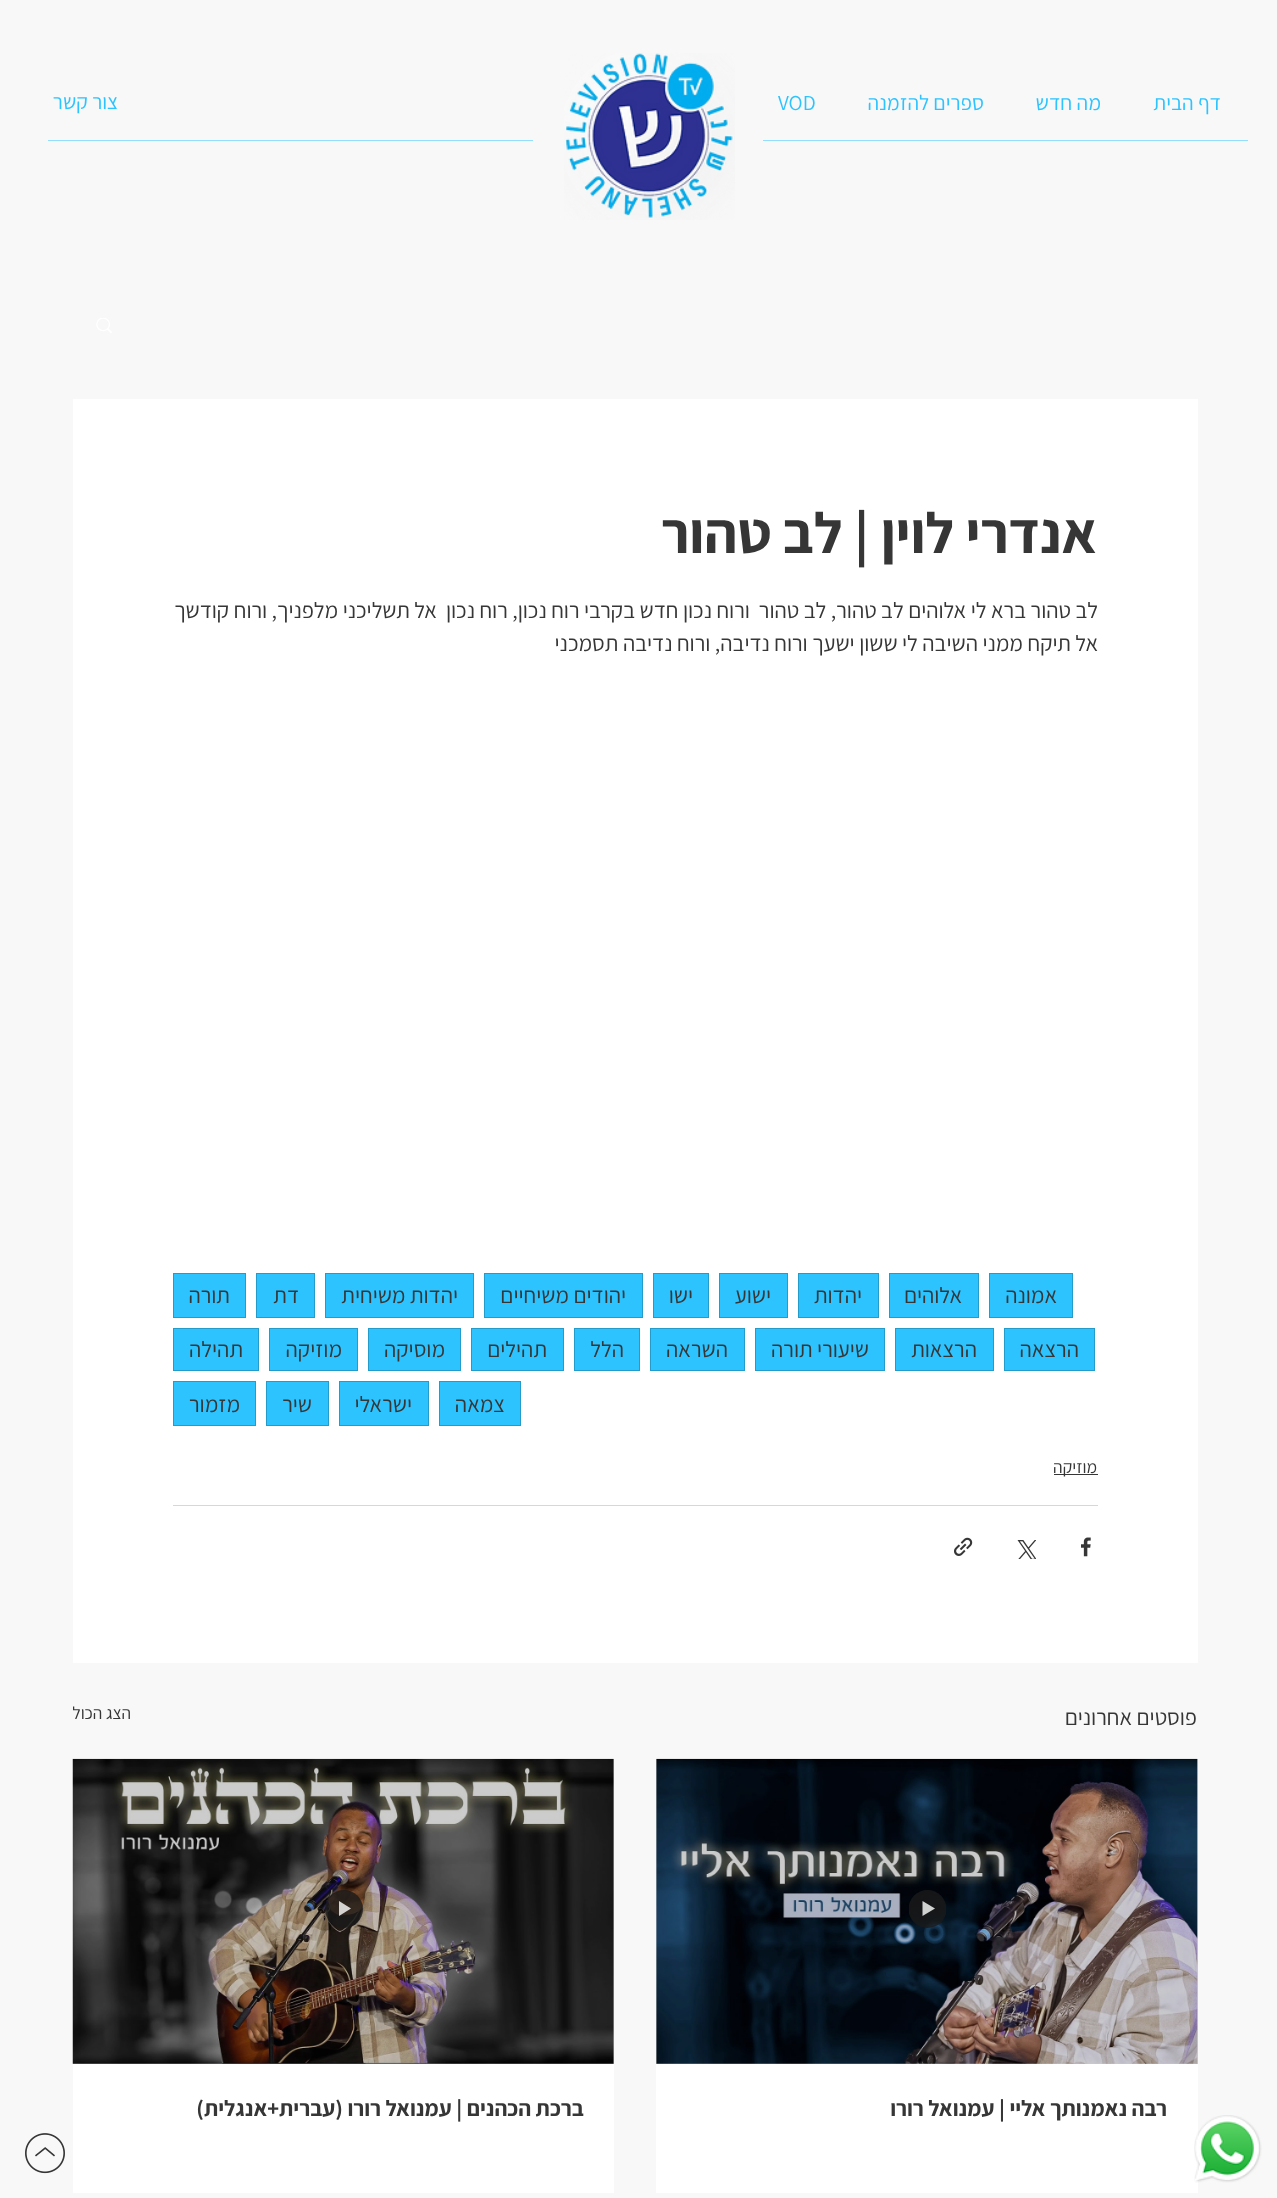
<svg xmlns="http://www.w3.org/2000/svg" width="1277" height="2198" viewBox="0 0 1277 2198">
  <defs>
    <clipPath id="clip1"><rect x="909" y="1890" width="37" height="38"/></clipPath>
  </defs>
  <rect width="100%" height="100%" fill="rgb(248,248,248)"/>
  <g font-family="Assistant" font-size="21.25" direction="rtl" fill="rgb(44,195,255)">
    <text x="1221" y="110">דף הבית</text>
    <text x="1101" y="110">מה חדש</text>
    <text x="984" y="110">ספרים להזמנה</text>
  </g>
  <text x="778" y="110" font-family="Assistant" font-size="21.25" fill="rgb(44,195,255)">VOD</text>
  <image x="564" y="53" width="171" height="167" href="pic1.png"/>
  <text x="118" y="109" font-family="Assistant" font-size="21.25" direction="rtl" fill="rgb(44,195,255)">צור קשר</text>
  <rect x="763" y="140" width="485" height="1" fill="rgb(146,222,252)"/>
  <rect x="48" y="140" width="485" height="1" fill="rgb(146,222,252)"/>
  <image x="96" y="318" width="16" height="15" href="pic2.png"/>
  <rect x="73" y="399" width="1125" height="1264" fill="rgb(255,255,255)"/>
  <text x="1097" y="553" font-family="Assistant" font-size="57.5" font-weight="bold" direction="rtl" fill="rgb(54,54,54)">אנדרי לוין | לב טהור</text>
  <g font-family="Assistant" font-size="22.5" direction="rtl" fill="rgb(54,54,54)">
    <text xml:space="preserve"><tspan x="1098" y="618">לב טהור ברא לי אלוהים לב טהור, לב טהור  ורוח נכון חדש בקרבי רוח נכון, רוח נכון  אל תשליכני מלפניך, ורוח קודשך</tspan><tspan x="1098" y="651">אל תיקח ממני השיבה לי ששון ישעך ורוח נדיבה, ורוח נדיבה תסמכני</tspan></text>
  </g>
  <rect x="989.5" y="1273.5" width="83" height="44" fill="rgb(44,195,255)" stroke="rgb(35,156,204)"/>
  <text x="1057" y="1303" font-family="Assistant" font-size="22.5" direction="rtl" fill="rgb(54,54,54)">אמונה</text>
  <rect x="889.5" y="1273.5" width="89" height="44" fill="rgb(44,195,255)" stroke="rgb(35,156,204)"/>
  <text x="962" y="1303" font-family="Assistant" font-size="22.5" direction="rtl" fill="rgb(54,54,54)">אלוהים</text>
  <rect x="798.5" y="1273.5" width="80" height="44" fill="rgb(44,195,255)" stroke="rgb(35,156,204)"/>
  <text x="862" y="1303" font-family="Assistant" font-size="22.5" direction="rtl" fill="rgb(54,54,54)">יהדות</text>
  <rect x="719.5" y="1273.5" width="68" height="44" fill="rgb(44,195,255)" stroke="rgb(35,156,204)"/>
  <text x="771" y="1303" font-family="Assistant" font-size="22.5" direction="rtl" fill="rgb(54,54,54)">ישוע</text>
  <rect x="653.5" y="1273.5" width="55" height="44" fill="rgb(44,195,255)" stroke="rgb(35,156,204)"/>
  <text x="693" y="1303" font-family="Assistant" font-size="22.5" direction="rtl" fill="rgb(54,54,54)">ישו</text>
  <rect x="484.5" y="1273.5" width="158" height="44" fill="rgb(44,195,255)" stroke="rgb(35,156,204)"/>
  <text x="626" y="1303" font-family="Assistant" font-size="22.5" direction="rtl" fill="rgb(54,54,54)">יהודים משיחיים</text>
  <rect x="325.5" y="1273.5" width="148" height="44" fill="rgb(44,195,255)" stroke="rgb(35,156,204)"/>
  <text x="458" y="1303" font-family="Assistant" font-size="22.5" direction="rtl" fill="rgb(54,54,54)">יהדות משיחית</text>
  <rect x="256.5" y="1273.5" width="58" height="44" fill="rgb(44,195,255)" stroke="rgb(35,156,204)"/>
  <text x="299" y="1303" font-family="Assistant" font-size="22.5" direction="rtl" fill="rgb(54,54,54)">דת</text>
  <rect x="173.5" y="1273.5" width="72" height="44" fill="rgb(44,195,255)" stroke="rgb(35,156,204)"/>
  <text x="230" y="1303" font-family="Assistant" font-size="22.5" direction="rtl" fill="rgb(54,54,54)">תורה</text>
  <rect x="1004.5" y="1328.5" width="90" height="42" fill="rgb(44,195,255)" stroke="rgb(35,156,204)"/>
  <text x="1079" y="1357" font-family="Assistant" font-size="22.5" direction="rtl" fill="rgb(54,54,54)">הרצאה</text>
  <rect x="895.5" y="1328.5" width="98" height="42" fill="rgb(44,195,255)" stroke="rgb(35,156,204)"/>
  <text x="977" y="1357" font-family="Assistant" font-size="22.5" direction="rtl" fill="rgb(54,54,54)">הרצאות</text>
  <rect x="755.5" y="1328.5" width="129" height="42" fill="rgb(44,195,255)" stroke="rgb(35,156,204)"/>
  <text x="869" y="1357" font-family="Assistant" font-size="22.5" direction="rtl" fill="rgb(54,54,54)">שיעורי תורה</text>
  <rect x="650.5" y="1328.5" width="94" height="42" fill="rgb(44,195,255)" stroke="rgb(35,156,204)"/>
  <text x="728" y="1357" font-family="Assistant" font-size="22.5" direction="rtl" fill="rgb(54,54,54)">השראה</text>
  <rect x="574.5" y="1328.5" width="65" height="42" fill="rgb(44,195,255)" stroke="rgb(35,156,204)"/>
  <text x="624" y="1357" font-family="Assistant" font-size="22.5" direction="rtl" fill="rgb(54,54,54)">הלל</text>
  <rect x="471.5" y="1328.5" width="92" height="42" fill="rgb(44,195,255)" stroke="rgb(35,156,204)"/>
  <text x="547" y="1357" font-family="Assistant" font-size="22.5" direction="rtl" fill="rgb(54,54,54)">תהילים</text>
  <rect x="368.5" y="1328.5" width="92" height="42" fill="rgb(44,195,255)" stroke="rgb(35,156,204)"/>
  <text x="445" y="1357" font-family="Assistant" font-size="22.5" direction="rtl" fill="rgb(54,54,54)">מוסיקה</text>
  <rect x="269.5" y="1328.5" width="88" height="42" fill="rgb(44,195,255)" stroke="rgb(35,156,204)"/>
  <text x="342" y="1357" font-family="Assistant" font-size="22.5" direction="rtl" fill="rgb(54,54,54)">מוזיקה</text>
  <rect x="173.5" y="1328.5" width="85" height="42" fill="rgb(44,195,255)" stroke="rgb(35,156,204)"/>
  <text x="243" y="1357" font-family="Assistant" font-size="22.5" direction="rtl" fill="rgb(54,54,54)">תהילה</text>
  <rect x="439.5" y="1381.5" width="81" height="44" fill="rgb(44,195,255)" stroke="rgb(35,156,204)"/>
  <text x="505" y="1412" font-family="Assistant" font-size="22.5" direction="rtl" fill="rgb(54,54,54)">צמאה</text>
  <rect x="339.5" y="1381.5" width="89" height="44" fill="rgb(44,195,255)" stroke="rgb(35,156,204)"/>
  <text x="412" y="1412" font-family="Assistant" font-size="22.5" direction="rtl" fill="rgb(54,54,54)">ישראלי</text>
  <rect x="266.5" y="1381.5" width="62" height="44" fill="rgb(44,195,255)" stroke="rgb(35,156,204)"/>
  <text x="312" y="1412" font-family="Assistant" font-size="22.5" direction="rtl" fill="rgb(54,54,54)">שיר</text>
  <rect x="173.5" y="1381.5" width="82" height="44" fill="rgb(44,195,255)" stroke="rgb(35,156,204)"/>
  <text x="240" y="1412" font-family="Assistant" font-size="22.5" direction="rtl" fill="rgb(54,54,54)">מזמור</text>
  <rect x="1054" y="1474" width="44" height="1" fill="rgb(54,54,54)"/>
  <text x="1097" y="1473" font-family="Assistant" font-size="17.5" direction="rtl" fill="rgb(54,54,54)">מוזיקה</text>
  <rect x="173" y="1505" width="925" height="1" fill="rgb(215,215,215)"/>
  <image x="1081" y="1537" width="10" height="20" href="pic3.png"/>
  <image x="1017" y="1540" width="19" height="19" href="pic4.png"/>
  <image x="954" y="1537" width="19" height="19" href="pic5.png"/>
  <text x="1197" y="1725" font-family="Assistant" font-size="22.5" direction="rtl" fill="rgb(54,54,54)">פוסטים אחרונים</text>
  <text x="131" y="1719" font-family="Assistant" font-size="17.5" direction="rtl" fill="rgb(54,54,54)">הצג הכול</text>
  <rect x="656" y="2064" width="542" height="129" fill="rgb(255,255,255)"/>
  <rect x="656" y="1759" width="542" height="305" fill="rgb(204,204,204)"/>
  <image x="656" y="1758" width="542" height="306" href="pic6.png"/>
  <g clip-path="url(#clip1)">
    <circle cx="927.5" cy="1909" r="19" fill="rgba(26,26,26,0.8)"/>
  </g>
  <path d="M922.5 1901V1916L935 1908.5Z" fill="rgb(208,209,209)"/>
  <text x="1167" y="2116" font-family="Assistant" font-size="22.5" font-weight="bold" direction="rtl" fill="rgb(54,54,54)">רבה נאמנותך אליי | עמנואל רורו</text>
  <rect x="73" y="2064" width="541" height="129" fill="rgb(255,255,255)"/>
  <rect x="73" y="1759" width="541" height="305" fill="rgb(204,204,204)"/>
  <image x="72" y="1758" width="542" height="306" href="pic7.png"/>
  <circle cx="344" cy="1909" r="19" fill="rgba(26,26,26,0.8)"/>
  <path d="M339 1901V1916L351 1908.5Z" fill="rgba(255,255,255,0.8)"/>
  <text x="584" y="2116" font-family="Assistant" font-size="22.5" font-weight="bold" direction="rtl" fill="rgb(54,54,54)">ברכת הכהנים | עמנואל רורו (עברית+אנגלית)</text>
  <image x="1194" y="2115" width="68" height="68" href="pic8.png"/>
  <image x="25" y="2133" width="40" height="41" href="pic9.png"/>
</svg>
